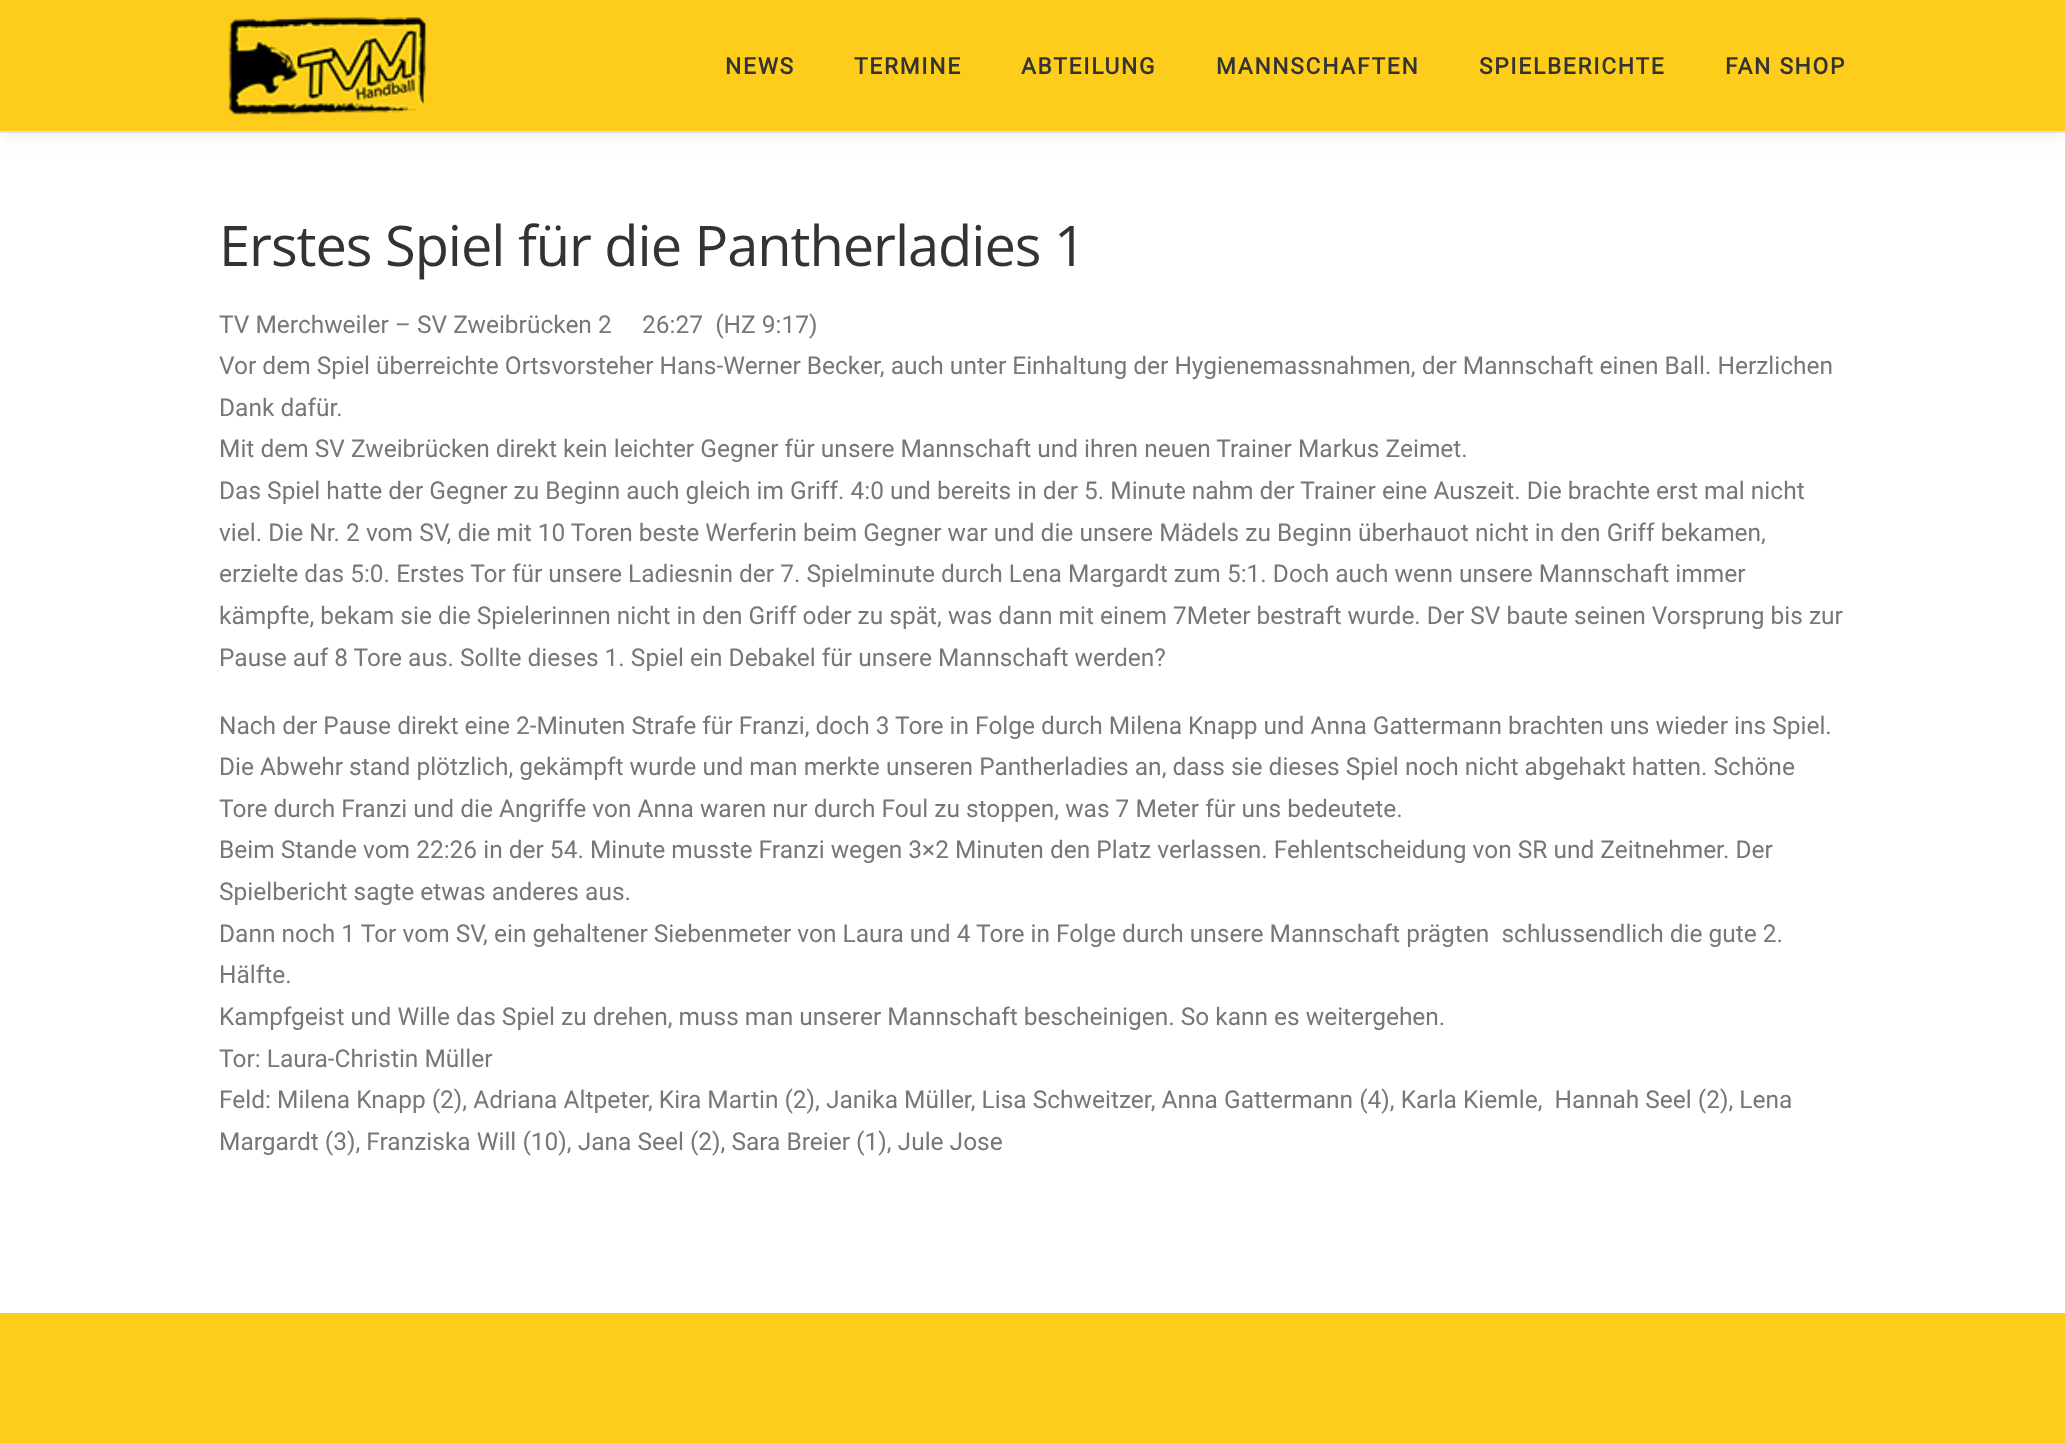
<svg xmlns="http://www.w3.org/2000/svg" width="2065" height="1443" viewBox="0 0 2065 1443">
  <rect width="100%" height="100%" fill="rgb(255,255,255)"/>
  <rect x="0" y="131" width="2065" height="2" fill="rgb(233,233,233)"/>
  <rect x="0" y="9" width="2065" height="131" fill="rgba(50,50,50,0.06)" filter="blur(9px)"/>
  <rect x="0" y="0" width="2065" height="131" fill="rgb(254,204,26)"/>
  <image x="228" y="17" width="198" height="98" href="pic1.png"/>
  <g font-family="Roboto" font-size="22.75" font-weight="bold" letter-spacing="1.75" fill="rgb(51,51,51)">
    <text x="725" y="74">NEWS</text>
    <text x="854" y="74">TERMINE</text>
    <text x="1021" y="74">ABTEILUNG</text>
    <text x="1216" y="74">MANNSCHAFTEN</text>
    <text x="1479" y="74">SPIELBERICHTE</text>
    <text x="1725" y="74">FAN SHOP</text>
  </g>
  <text x="219" y="266" font-family="Open Sans" font-size="56" letter-spacing="-1.05" fill="rgb(51,51,51)">Erstes Spiel für die Pantherladies 1</text>
  <g font-family="Roboto" font-size="24.5" fill="rgb(119,119,119)">
    <text xml:space="preserve"><tspan x="219" y="333">TV Merchweiler – SV Zweibrücken 2     26:27  (HZ 9:17)</tspan><tspan x="219" y="374">Vor dem Spiel überreichte Ortsvorsteher Hans-Werner Becker, auch unter Einhaltung der Hygienemassnahmen, der Mannschaft einen Ball. Herzlichen</tspan><tspan x="219" y="416">Dank dafür.</tspan><tspan x="219" y="457">Mit dem SV Zweibrücken direkt kein leichter Gegner für unsere Mannschaft und ihren neuen Trainer Markus Zeimet.</tspan><tspan x="219" y="499">Das Spiel hatte der Gegner zu Beginn auch gleich im Griff. 4:0 und bereits in der 5. Minute nahm der Trainer eine Auszeit. Die brachte erst mal nicht</tspan><tspan x="219" y="541">viel. Die Nr. 2 vom SV, die mit 10 Toren beste Werferin beim Gegner war und die unsere Mädels zu Beginn überhauot nicht in den Griff bekamen,</tspan><tspan x="219" y="582">erzielte das 5:0. Erstes Tor für unsere Ladiesnin der 7. Spielminute durch Lena Margardt zum 5:1. Doch auch wenn unsere Mannschaft immer</tspan><tspan x="219" y="624">kämpfte, bekam sie die Spielerinnen nicht in den Griff oder zu spät, was dann mit einem 7Meter bestraft wurde. Der SV baute seinen Vorsprung bis zur</tspan><tspan x="219" y="666">Pause auf 8 Tore aus. Sollte dieses 1. Spiel ein Debakel für unsere Mannschaft werden?</tspan></text>
    <text xml:space="preserve"><tspan x="219" y="734">Nach der Pause direkt eine 2-Minuten Strafe für Franzi, doch 3 Tore in Folge durch Milena Knapp und Anna Gattermann brachten uns wieder ins Spiel.</tspan><tspan x="219" y="775">Die Abwehr stand plötzlich, gekämpft wurde und man merkte unseren Pantherladies an, dass sie dieses Spiel noch nicht abgehakt hatten. Schöne</tspan><tspan x="219" y="817">Tore durch Franzi und die Angriffe von Anna waren nur durch Foul zu stoppen, was 7 Meter für uns bedeutete.</tspan><tspan x="219" y="858">Beim Stande vom 22:26 in der 54. Minute musste Franzi wegen 3×2 Minuten den Platz verlassen. Fehlentscheidung von SR und Zeitnehmer. Der</tspan><tspan x="219" y="900">Spielbericht sagte etwas anderes aus.</tspan><tspan x="219" y="942">Dann noch 1 Tor vom SV, ein gehaltener Siebenmeter von Laura und 4 Tore in Folge durch unsere Mannschaft prägten  schlussendlich die gute 2.</tspan><tspan x="219" y="983">Hälfte.</tspan><tspan x="219" y="1025">Kampfgeist und Wille das Spiel zu drehen, muss man unserer Mannschaft bescheinigen. So kann es weitergehen.</tspan><tspan x="219" y="1067">Tor: Laura-Christin Müller</tspan><tspan x="219" y="1108">Feld: Milena Knapp (2), Adriana Altpeter, Kira Martin (2), Janika Müller, Lisa Schweitzer, Anna Gattermann (4), Karla Kiemle,  Hannah Seel (2), Lena</tspan><tspan x="219" y="1150">Margardt (3), Franziska Will (10), Jana Seel (2), Sara Breier (1), Jule Jose</tspan></text>
  </g>
  <rect x="0" y="1313" width="2065" height="130" fill="rgb(254,204,26)"/>
</svg>
